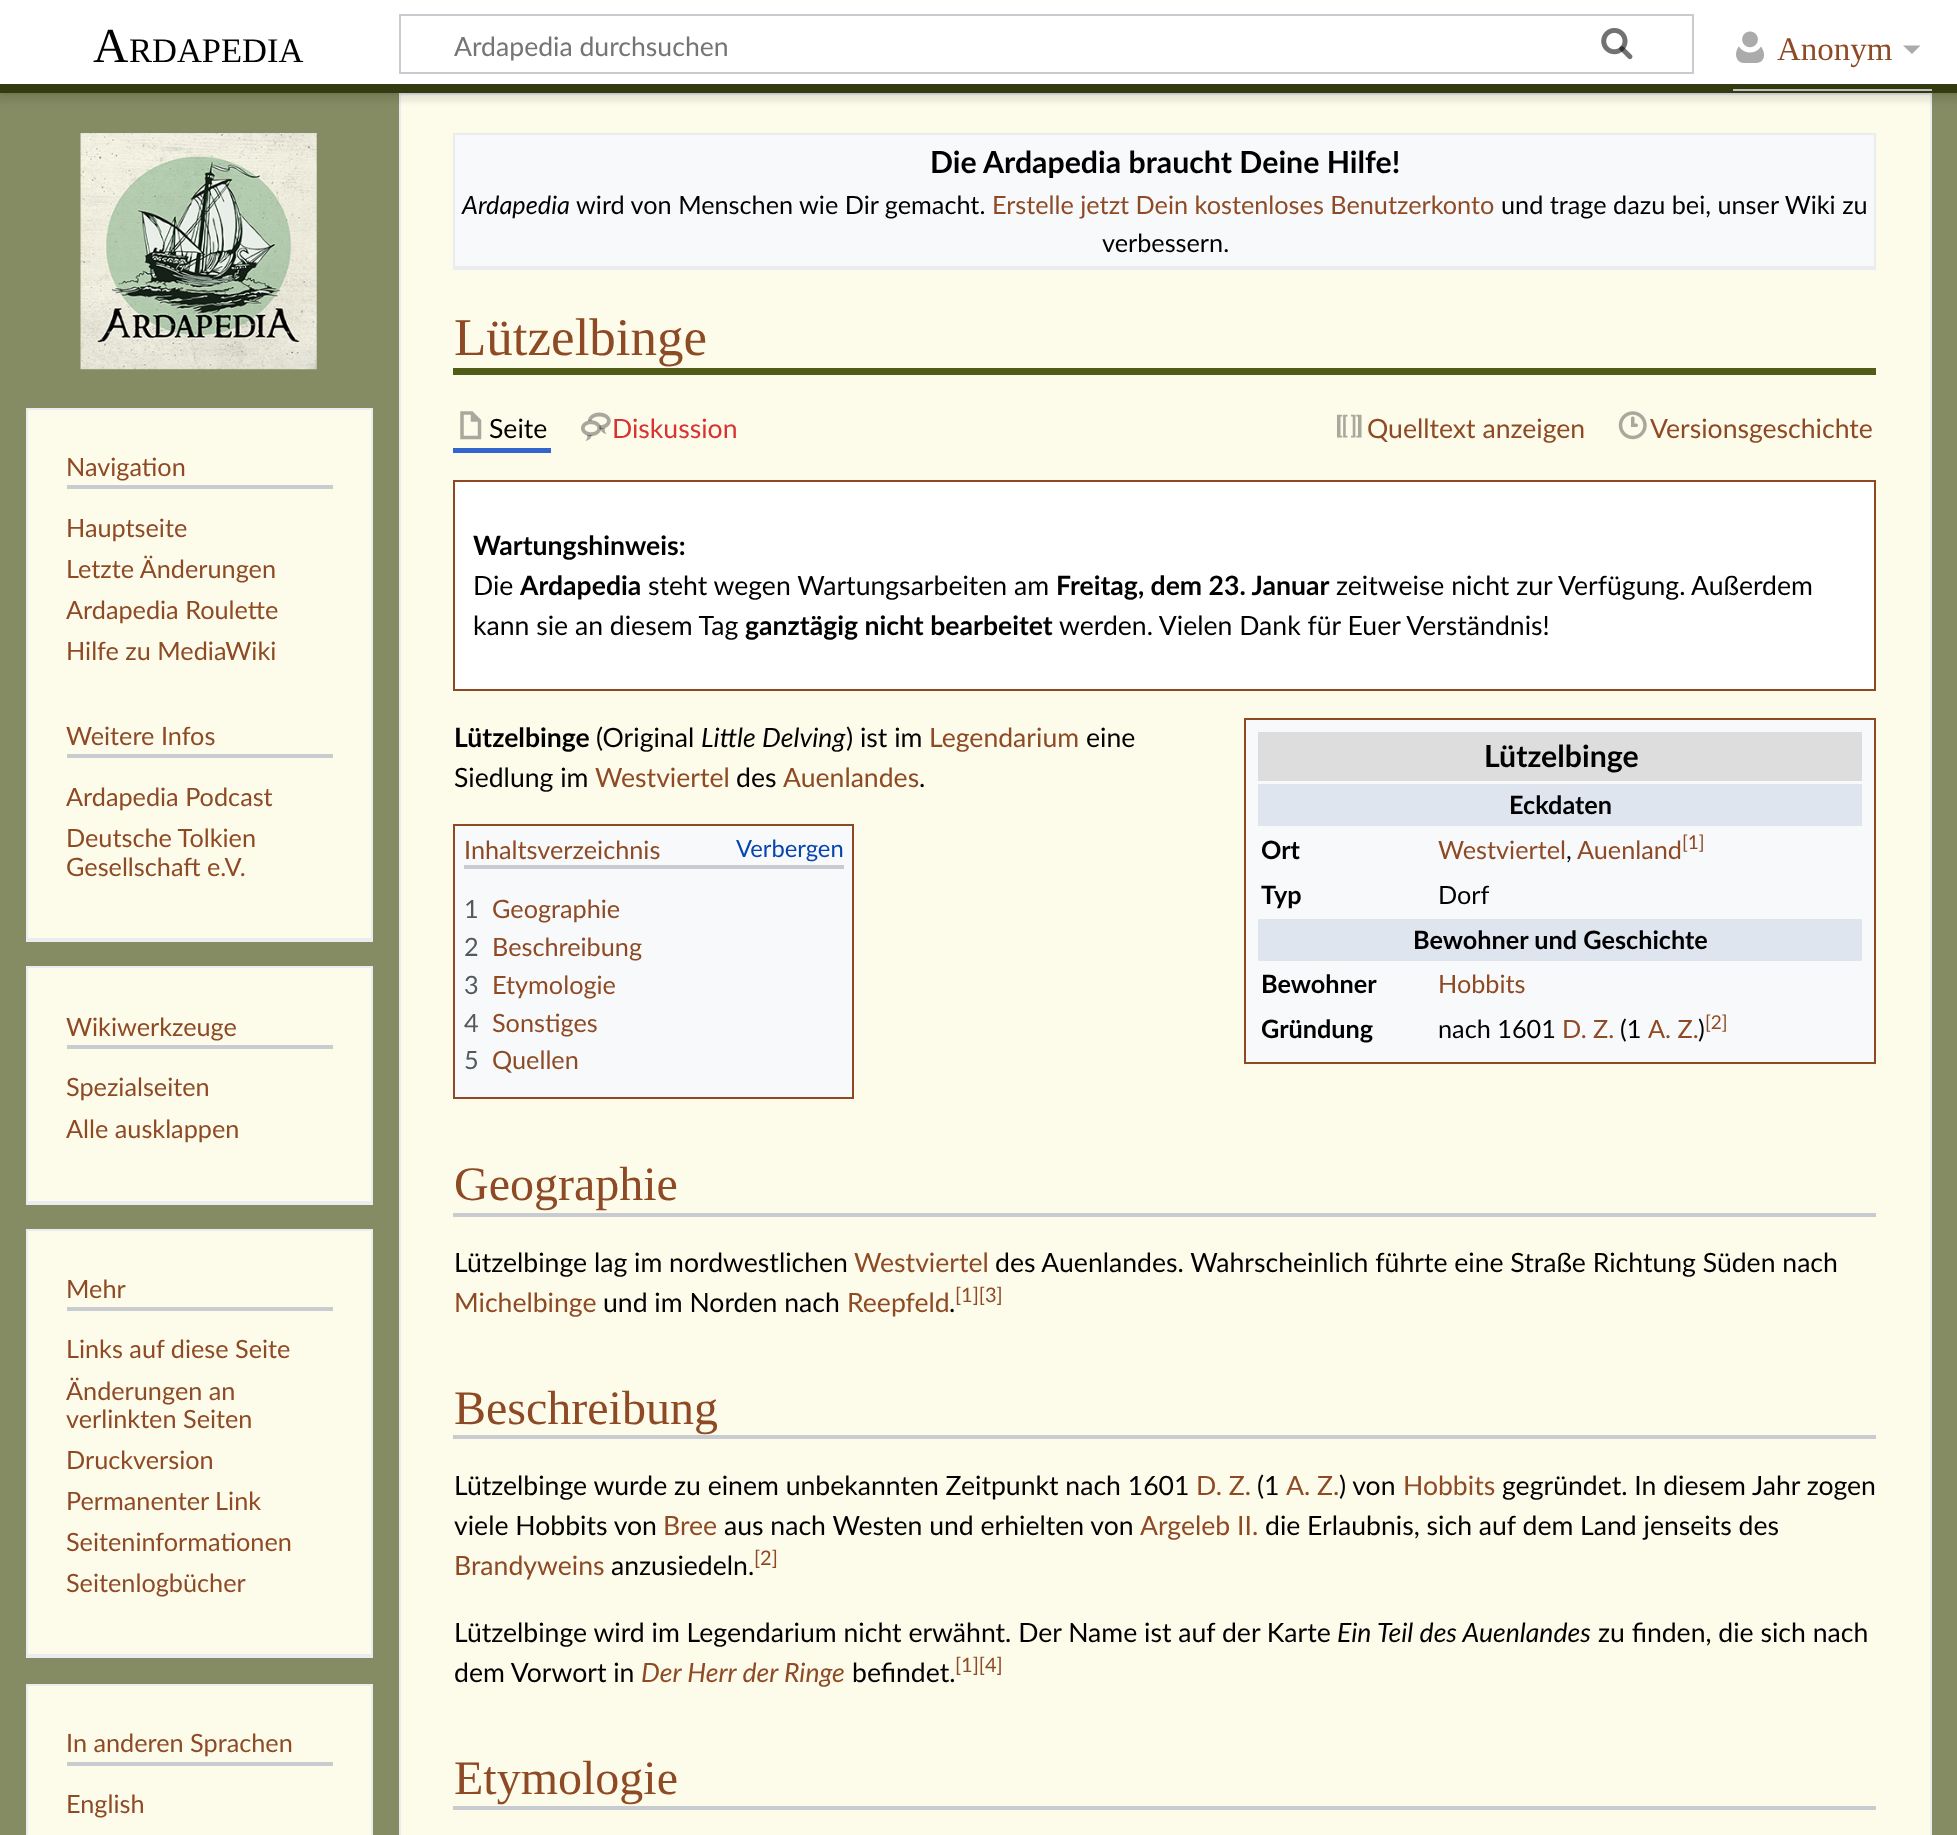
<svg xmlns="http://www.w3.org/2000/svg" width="1957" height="1835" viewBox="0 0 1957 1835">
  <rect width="100%" height="100%" fill="rgb(133,139,98)"/>
  <rect x="401" y="95" width="1529" height="1740" fill="rgb(253,251,234)"/>
  <rect x="399" y="93" width="1533" height="2" fill="rgb(234,236,240)"/>
  <rect x="1930" y="93" width="2" height="1742" fill="rgb(234,236,240)"/>
  <rect x="399" y="93" width="2" height="1742" fill="rgb(234,236,240)"/>
  <rect x="0" y="84" width="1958" height="9" fill="rgba(0,0,0,0.2)" filter="blur(2px)"/>
  <rect x="-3" y="86" width="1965" height="16" fill="rgba(0,0,0,0.07)" filter="blur(2.5px)"/>
  <rect x="0" y="0" width="1957" height="84" fill="rgb(255,255,255)"/>
  <text x="93" y="62" font-family="Liberation Serif" font-size="49" fill="rgb(0,0,0)">A</text>
  <text x="129" y="62" font-family="Liberation Serif" font-size="34.5" fill="rgb(0,0,0)">RDAPEDIA</text>
  <rect x="400" y="15" width="1293" height="58" fill="none" stroke="rgb(200,204,209)" stroke-width="2"/>
  <image x="1601" y="28" width="32" height="32" href="pic1.png"/>
  <text x="454" y="56" font-family="Lato" font-size="26.6" fill="rgb(117,117,117)">Ardapedia durchsuchen</text>
  <image x="1601" y="28" width="32" height="32" href="pic2.png"/>
  <image x="1736" y="31" width="28" height="32" href="pic3.png"/>
  <rect x="0" y="84" width="1957" height="9" fill="rgb(51,58,15)"/>
  <rect x="1733" y="89" width="199" height="2" fill="rgb(192,192,192)"/>
  <text x="1777" y="60" font-family="Liberation Serif" font-size="33" fill="rgb(142,74,37)">Anonym</text>
  <path d="M1920.5 45.5L1912 54L1903 45.5Z" fill="rgb(171,171,171)"/>
  <image x="80" y="133" width="237" height="237" href="pic4.png"/>
  <rect x="28" y="410" width="343" height="528" fill="rgb(253,251,234)"/>
  <rect x="26" y="408" width="347" height="2" fill="rgb(234,236,240)"/>
  <rect x="371" y="408" width="2" height="534" fill="rgb(234,236,240)"/>
  <rect x="26" y="938" width="347" height="4" fill="rgb(234,236,240)"/>
  <rect x="26" y="408" width="2" height="534" fill="rgb(234,236,240)"/>
  <rect x="67" y="485" width="266" height="4" fill="rgb(200,204,209)"/>
  <g font-family="Lato" font-size="25.25" fill="rgb(142,74,37)">
    <text x="66" y="476">Navigation</text>
    <text>
      <tspan x="66" y="537">Hauptseite</tspan>
      <tspan x="66" y="578">Letzte Änderungen</tspan>
      <tspan x="66" y="619">Ardapedia Roulette</tspan>
      <tspan x="66" y="660">Hilfe zu MediaWiki</tspan>
    </text>
  </g>
  <rect x="67" y="754" width="266" height="4" fill="rgb(200,204,209)"/>
  <g font-family="Lato" font-size="25.25" fill="rgb(142,74,37)">
    <text x="66" y="745">Weitere Infos</text>
    <text>
      <tspan x="66" y="806">Ardapedia Podcast</tspan>
      <tspan x="66" y="847">Deutsche Tolkien</tspan>
      <tspan x="66" y="876">Gesellschaft e.V.</tspan>
    </text>
  </g>
  <rect x="28" y="968" width="343" height="233" fill="rgb(253,251,234)"/>
  <rect x="26" y="966" width="347" height="2" fill="rgb(234,236,240)"/>
  <rect x="371" y="966" width="2" height="238" fill="rgb(234,236,240)"/>
  <rect x="26" y="1201" width="347" height="4" fill="rgb(234,236,240)"/>
  <rect x="26" y="966" width="2" height="238" fill="rgb(234,236,240)"/>
  <rect x="67" y="1045" width="266" height="4" fill="rgb(200,204,209)"/>
  <g font-family="Lato" font-size="25.25" fill="rgb(142,74,37)">
    <text x="66" y="1036">Wikiwerkzeuge</text>
    <text>
      <tspan x="66" y="1096">Spezialseiten</tspan>
      <tspan x="66" y="1138">Alle ausklappen</tspan>
    </text>
  </g>
  <rect x="455" y="135" width="1419" height="131" fill="rgb(248,249,250)"/>
  <rect x="453" y="133" width="1423" height="2" fill="rgb(234,236,240)"/>
  <rect x="1874" y="133" width="2" height="137" fill="rgb(234,236,240)"/>
  <rect x="453" y="266" width="1423" height="4" fill="rgb(234,236,240)"/>
  <rect x="453" y="133" width="2" height="137" fill="rgb(234,236,240)"/>
  <text x="930" y="173" font-family="Lato" font-size="30.3" font-weight="bold" fill="rgb(0,0,0)">Die Ardapedia braucht Deine Hilfe!</text>
  <text x="462" y="214" font-family="Lato" font-size="25.25" font-style="italic" fill="rgb(0,0,0)">Ardapedia</text>
  <g font-family="Lato" font-size="25.25" fill="rgb(0,0,0)">
    <text x="576" y="214">wird von Menschen</text>
    <text x="799" y="214">wie Dir gemacht.</text>
  </g>
  <text x="992" y="214" font-family="Lato" font-size="25.25" fill="rgb(142,74,37)">Erstelle jetzt Dein kostenloses Benutzerkonto</text>
  <g font-family="Lato" font-size="25.25" fill="rgb(0,0,0)">
    <text x="1501" y="214">und trage dazu bei, unser Wiki zu</text>
    <text x="1102" y="252">verbessern.</text>
  </g>
  <rect x="453" y="368" width="1423" height="7" fill="rgb(81,92,23)"/>
  <text x="454" y="355" font-family="Liberation Serif" font-size="53" fill="rgb(142,74,37)">Lützelbinge</text>
  <rect x="453" y="448" width="98" height="5" fill="rgb(51,102,204)"/>
  <image x="460" y="411" width="22" height="29" href="pic5.png"/>
  <text x="489" y="438" font-family="Lato" font-size="26.6" fill="rgb(0,0,0)">Seite</text>
  <image x="581" y="412" width="30" height="29" href="pic6.png"/>
  <text x="612" y="438" font-family="Lato" font-size="26.6" fill="rgb(215,51,51)">Diskussion</text>
  <image x="1337" y="414" width="25" height="24" href="pic7.png"/>
  <text x="1367" y="438" font-family="Lato" font-size="26.6" fill="rgb(142,74,37)">Quelltext anzeigen</text>
  <image x="1618" y="411" width="29" height="29" href="pic8.png"/>
  <text x="1650" y="438" font-family="Lato" font-size="26.6" fill="rgb(142,74,37)">Versionsgeschichte</text>
  <rect x="454" y="481" width="1421" height="209" fill="rgb(255,255,255)" stroke="rgb(142,73,36)" stroke-width="2"/>
  <text x="473" y="555" font-family="Lato" font-size="26.6" font-weight="bold" fill="rgb(0,0,0)">Wartungshinweis:</text>
  <text x="473" y="595" font-family="Lato" font-size="26.6" fill="rgb(0,0,0)">Die</text>
  <text x="520" y="595" font-family="Lato" font-size="26.6" font-weight="bold" fill="rgb(0,0,0)">Ardapedia</text>
  <text x="648" y="595" font-family="Lato" font-size="26.6" fill="rgb(0,0,0)">steht wegen Wartungsarbeiten am</text>
  <text x="1056" y="595" font-family="Lato" font-size="26.6" font-weight="bold" fill="rgb(0,0,0)">Freitag, dem 23. Januar</text>
  <g font-family="Lato" font-size="26.6" fill="rgb(0,0,0)">
    <text x="1336" y="595">zeitweise nicht zur Verfügung.</text>
    <text x="1691" y="595">Außerdem</text>
    <text x="473" y="635">kann sie an diesem Tag</text>
  </g>
  <text x="745" y="635" font-family="Lato" font-size="26.6" font-weight="bold" fill="rgb(0,0,0)">ganztägig nicht bearbeitet</text>
  <text x="1059" y="635" font-family="Lato" font-size="26.6" fill="rgb(0,0,0)">werden. Vielen Dank für Euer Verständnis!</text>
  <text x="454" y="747" font-family="Lato" font-size="26.6" font-weight="bold" fill="rgb(0,0,0)">Lützelbinge</text>
  <text x="596" y="747" font-family="Lato" font-size="26.6" fill="rgb(0,0,0)">(Original</text>
  <text x="701" y="747" font-family="Lato" font-size="26.6" font-style="italic" fill="rgb(0,0,0)">Little Delving</text>
  <text x="846" y="747" font-family="Lato" font-size="26.6" fill="rgb(0,0,0)">) ist im</text>
  <text x="929" y="747" font-family="Lato" font-size="26.6" fill="rgb(142,74,37)">Legendarium</text>
  <g font-family="Lato" font-size="26.6" fill="rgb(0,0,0)">
    <text x="1086" y="747">eine</text>
    <text x="454" y="787">Siedlung im</text>
  </g>
  <text x="595" y="787" font-family="Lato" font-size="26.6" fill="rgb(142,74,37)">Westviertel</text>
  <text x="736" y="787" font-family="Lato" font-size="26.6" fill="rgb(0,0,0)">des</text>
  <text x="783" y="787" font-family="Lato" font-size="26.6" fill="rgb(142,74,37)">Auenlandes</text>
  <text x="919" y="787" font-family="Lato" font-size="26.6" fill="rgb(0,0,0)">.</text>
  <rect x="1245" y="719" width="630" height="344" fill="rgb(248,249,250)" stroke="rgb(142,73,36)" stroke-width="2"/>
  <rect x="1258" y="732" width="604" height="49" fill="rgb(221,221,221)"/>
  <text x="1484" y="767" font-family="Lato" font-size="30.3" font-weight="bold" fill="rgb(0,0,0)">Lützelbinge</text>
  <rect x="1258" y="784" width="604" height="42" fill="rgb(222,229,238)"/>
  <g font-family="Lato" font-size="25.25" font-weight="bold" fill="rgb(0,0,0)">
    <text x="1509" y="814">Eckdaten</text>
    <text x="1261" y="859">Ort</text>
  </g>
  <text x="1438" y="859" font-family="Lato" font-size="25.25" fill="rgb(142,74,37)">Westviertel</text>
  <text x="1566" y="859" font-family="Lato" font-size="25.25" fill="rgb(0,0,0)">,</text>
  <text x="1577" y="859" font-family="Lato" font-size="25.25" fill="rgb(142,74,37)">Auenland</text>
  <text x="1682" y="849" font-family="Lato" font-size="19" fill="rgb(142,74,37)">[1]</text>
  <text x="1261" y="904" font-family="Lato" font-size="25.25" font-weight="bold" fill="rgb(0,0,0)">Typ</text>
  <text x="1438" y="904" font-family="Lato" font-size="25.25" fill="rgb(0,0,0)">Dorf</text>
  <rect x="1258" y="919" width="604" height="42" fill="rgb(222,229,238)"/>
  <g font-family="Lato" font-size="25.25" font-weight="bold" fill="rgb(0,0,0)">
    <text x="1413" y="949">Bewohner und Geschichte</text>
    <text x="1261" y="993">Bewohner</text>
  </g>
  <text x="1438" y="993" font-family="Lato" font-size="25.25" fill="rgb(142,74,37)">Hobbits</text>
  <text x="1261" y="1038" font-family="Lato" font-size="25.25" font-weight="bold" fill="rgb(0,0,0)">Gründung</text>
  <text x="1438" y="1038" font-family="Lato" font-size="25.25" fill="rgb(0,0,0)">nach 1601</text>
  <text x="1562" y="1038" font-family="Lato" font-size="25.25" fill="rgb(142,74,37)">D. Z.</text>
  <text x="1620" y="1038" font-family="Lato" font-size="25.25" fill="rgb(0,0,0)">(1</text>
  <text x="1648" y="1038" font-family="Lato" font-size="25.25" fill="rgb(142,74,37)">A. Z.</text>
  <text x="1698" y="1038" font-family="Lato" font-size="25.25" fill="rgb(0,0,0)">)</text>
  <text x="1705" y="1029" font-family="Lato" font-size="19" fill="rgb(142,74,37)">[2]</text>
  <rect x="454" y="825" width="399" height="273" fill="rgb(248,249,250)" stroke="rgb(142,73,36)" stroke-width="2"/>
  <rect x="464" y="865" width="380" height="4" fill="rgb(200,204,209)"/>
  <text x="464" y="859" font-family="Lato" font-size="25.25" fill="rgb(142,74,37)">Inhaltsverzeichnis</text>
  <text x="736" y="857" font-family="Lato" font-size="23.75" fill="rgb(6,69,173)">Verbergen</text>
  <text x="464" y="918" font-family="Lato" font-size="25.25" fill="rgb(84,89,93)">1</text>
  <text x="492" y="918" font-family="Lato" font-size="25.25" fill="rgb(142,74,37)">Geographie</text>
  <text x="464" y="956" font-family="Lato" font-size="25.25" fill="rgb(84,89,93)">2</text>
  <text x="492" y="956" font-family="Lato" font-size="25.25" fill="rgb(142,74,37)">Beschreibung</text>
  <text x="464" y="994" font-family="Lato" font-size="25.25" fill="rgb(84,89,93)">3</text>
  <text x="492" y="994" font-family="Lato" font-size="25.25" fill="rgb(142,74,37)">Etymologie</text>
  <text x="464" y="1032" font-family="Lato" font-size="25.25" fill="rgb(84,89,93)">4</text>
  <text x="492" y="1032" font-family="Lato" font-size="25.25" fill="rgb(142,74,37)">Sonstiges</text>
  <text x="464" y="1069" font-family="Lato" font-size="25.25" fill="rgb(84,89,93)">5</text>
  <text x="492" y="1069" font-family="Lato" font-size="25.25" fill="rgb(142,74,37)">Quellen</text>
  <rect x="453" y="1213" width="1423" height="4" fill="rgb(200,204,209)"/>
  <text x="454" y="1200" font-family="Liberation Serif" font-size="48" fill="rgb(142,74,37)">Geographie</text>
  <text x="454" y="1272" font-family="Lato" font-size="26.6" fill="rgb(0,0,0)">Lützelbinge lag im nordwestlichen</text>
  <text x="854" y="1272" font-family="Lato" font-size="26.6" fill="rgb(142,74,37)">Westviertel</text>
  <text x="995" y="1272" font-family="Lato" font-size="26.6" fill="rgb(0,0,0)">des Auenlandes. Wahrscheinlich führte eine Straße Richtung Süden nach</text>
  <text x="454" y="1312" font-family="Lato" font-size="26.6" fill="rgb(142,74,37)">Michelbinge</text>
  <text x="603" y="1312" font-family="Lato" font-size="26.6" fill="rgb(0,0,0)">und im Norden nach</text>
  <text x="847" y="1312" font-family="Lato" font-size="26.6" fill="rgb(142,74,37)">Reepfeld</text>
  <text x="949" y="1312" font-family="Lato" font-size="26.6" fill="rgb(0,0,0)">.</text>
  <text x="955" y="1302" font-family="Lato" font-size="20" fill="rgb(142,74,37)">[1][3]</text>
  <rect x="453" y="1435" width="1423" height="4" fill="rgb(200,204,209)"/>
  <text x="454" y="1424" font-family="Liberation Serif" font-size="48" fill="rgb(142,74,37)">Beschreibung</text>
  <text x="454" y="1495" font-family="Lato" font-size="26.6" fill="rgb(0,0,0)">Lützelbinge wurde zu einem unbekannten Zeitpunkt nach 1601</text>
  <text x="1196" y="1495" font-family="Lato" font-size="26.6" fill="rgb(142,74,37)">D. Z.</text>
  <text x="1257" y="1495" font-family="Lato" font-size="26.6" fill="rgb(0,0,0)">(1</text>
  <text x="1286" y="1495" font-family="Lato" font-size="26.6" fill="rgb(142,74,37)">A. Z.</text>
  <text x="1339" y="1495" font-family="Lato" font-size="26.6" fill="rgb(0,0,0)">) von</text>
  <text x="1403" y="1495" font-family="Lato" font-size="26.6" fill="rgb(142,74,37)">Hobbits</text>
  <g font-family="Lato" font-size="26.6" fill="rgb(0,0,0)">
    <text x="1502" y="1495">gegründet. In diesem Jahr zogen</text>
    <text x="454" y="1535">viele Hobbits von</text>
  </g>
  <text x="663" y="1535" font-family="Lato" font-size="26.6" fill="rgb(142,74,37)">Bree</text>
  <text x="724" y="1535" font-family="Lato" font-size="26.6" fill="rgb(0,0,0)">aus nach Westen und erhielten von</text>
  <text x="1140" y="1535" font-family="Lato" font-size="26.6" fill="rgb(142,74,37)">Argeleb II.</text>
  <text x="1265" y="1535" font-family="Lato" font-size="26.6" fill="rgb(0,0,0)">die Erlaubnis, sich auf dem Land jenseits des</text>
  <text x="454" y="1575" font-family="Lato" font-size="26.6" fill="rgb(142,74,37)">Brandyweins</text>
  <text x="611" y="1575" font-family="Lato" font-size="26.6" fill="rgb(0,0,0)">anzusiedeln.</text>
  <text x="754" y="1565" font-family="Lato" font-size="20" fill="rgb(142,74,37)">[2]</text>
  <text x="454" y="1642" font-family="Lato" font-size="26.6" fill="rgb(0,0,0)">Lützelbinge wird im Legendarium nicht erwähnt. Der Name ist auf der Karte</text>
  <text x="1337" y="1642" font-family="Lato" font-size="26.6" font-style="italic" fill="rgb(0,0,0)">Ein Teil des Auenlandes</text>
  <g font-family="Lato" font-size="26.6" fill="rgb(0,0,0)">
    <text x="1598" y="1642">zu finden, die sich nach</text>
    <text x="454" y="1682">dem Vorwort in</text>
  </g>
  <text x="641" y="1682" font-family="Lato" font-size="26.6" font-style="italic" fill="rgb(142,74,37)">Der Herr der Ringe</text>
  <text x="852" y="1682" font-family="Lato" font-size="26.6" fill="rgb(0,0,0)">befindet.</text>
  <text x="955" y="1672" font-family="Lato" font-size="20" fill="rgb(142,74,37)">[1][4]</text>
  <rect x="453" y="1806" width="1423" height="4" fill="rgb(200,204,209)"/>
  <text x="454" y="1794" font-family="Liberation Serif" font-size="48" fill="rgb(142,74,37)">Etymologie</text>
  <rect x="28" y="1231" width="343" height="423" fill="rgb(253,251,234)"/>
  <rect x="26" y="1229" width="347" height="2" fill="rgb(234,236,240)"/>
  <rect x="371" y="1229" width="2" height="428" fill="rgb(234,236,240)"/>
  <rect x="26" y="1654" width="347" height="4" fill="rgb(234,236,240)"/>
  <rect x="26" y="1229" width="2" height="428" fill="rgb(234,236,240)"/>
  <rect x="67" y="1307" width="266" height="4" fill="rgb(200,204,209)"/>
  <g font-family="Lato" font-size="25.25" fill="rgb(142,74,37)">
    <text x="66" y="1298">Mehr</text>
    <text>
      <tspan x="66" y="1358">Links auf diese Seite</tspan>
      <tspan x="66" y="1400">Änderungen an</tspan>
      <tspan x="66" y="1428">verlinkten Seiten</tspan>
      <tspan x="66" y="1469">Druckversion</tspan>
      <tspan x="66" y="1510">Permanenter Link</tspan>
      <tspan x="66" y="1551">Seiteninformationen</tspan>
      <tspan x="66" y="1592">Seitenlogbücher</tspan>
    </text>
  </g>
  <rect x="28" y="1686" width="343" height="149" fill="rgb(253,251,234)"/>
  <rect x="26" y="1684" width="347" height="2" fill="rgb(234,236,240)"/>
  <rect x="371" y="1684" width="2" height="151" fill="rgb(234,236,240)"/>
  <rect x="26" y="1684" width="2" height="151" fill="rgb(234,236,240)"/>
  <rect x="67" y="1762" width="266" height="4" fill="rgb(200,204,209)"/>
  <g font-family="Lato" font-size="25.25" fill="rgb(142,74,37)">
    <text x="66" y="1752">In anderen Sprachen</text>
    <text x="66" y="1813">English</text>
  </g>
</svg>
